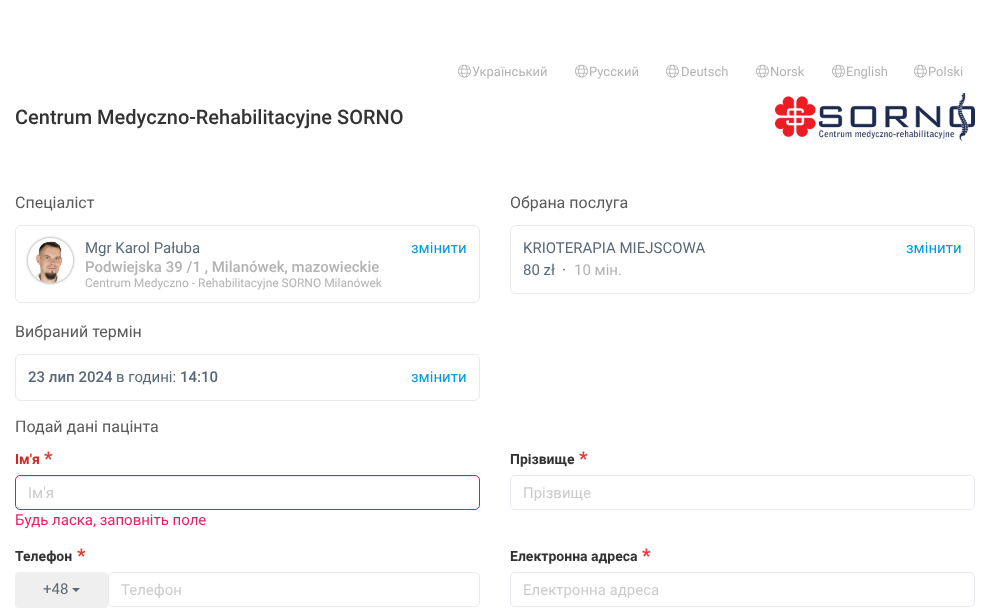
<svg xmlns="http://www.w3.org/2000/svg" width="990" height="608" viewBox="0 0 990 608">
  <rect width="100%" height="100%" fill="rgb(255,255,255)"/>
  <image x="458" y="64" width="13" height="14" href="pic1.png"/>
  <text x="472" y="76" font-family="Roboto" font-size="13" fill="rgb(179,179,179)">Український</text>
  <image x="575" y="64" width="13" height="14" href="pic1.png"/>
  <text x="589" y="76" font-family="Roboto" font-size="13" fill="rgb(179,179,179)">Русский</text>
  <image x="666" y="64" width="13" height="14" href="pic1.png"/>
  <text x="681" y="76" font-family="Roboto" font-size="13" fill="rgb(179,179,179)">Deutsch</text>
  <image x="756" y="64" width="13" height="14" href="pic1.png"/>
  <text x="770" y="76" font-family="Roboto" font-size="13" fill="rgb(179,179,179)">Norsk</text>
  <image x="832" y="64" width="13" height="14" href="pic1.png"/>
  <text x="846" y="76" font-family="Roboto" font-size="13" fill="rgb(179,179,179)">English</text>
  <image x="914" y="64" width="13" height="14" href="pic1.png"/>
  <text x="928" y="76" font-family="Roboto" font-size="13" fill="rgb(179,179,179)">Polski</text>
  <text x="15" y="124" font-family="Roboto" font-size="20" font-weight="500" fill="rgb(51,51,51)">Centrum Medyczno-Rehabilitacyjne SORNO</text>
  <image x="775" y="93" width="200" height="48" href="pic2.png"/>
  <text x="15" y="208" font-family="Roboto" font-size="16" fill="rgb(90,90,90)">Спеціаліст</text>
  <rect x="15.5" y="225.5" width="464" height="77" rx="5.5" fill="none" stroke="rgb(233,233,233)"/>
  <rect x="28" y="238" width="45" height="45" rx="22.5" fill="rgba(0,0,0,0.5)" filter="blur(1.5px)"/>
  <circle cx="50.5" cy="260.5" r="22.5" fill="rgb(238,238,238)"/>
  <image x="28" y="238" width="45" height="45" href="pic3.png"/>
  <text x="85" y="253" font-family="Roboto" font-size="15" fill="rgb(89,104,119)">Mgr Karol Pałuba</text>
  <text x="411" y="253" font-family="Roboto" font-size="15" fill="rgb(0,154,224)">змінити</text>
  <text x="85" y="272" font-family="Roboto" font-size="15" font-weight="500" fill="rgb(179,179,179)">Podwiejska 39 /1 , Milanówek, mazowieckie</text>
  <text x="85" y="287" font-family="Roboto" font-size="12" fill="rgb(179,179,179)">Centrum Medyczno - Rehabilitacyjne SORNO Milanówek</text>
  <text x="510" y="208" font-family="Roboto" font-size="16" fill="rgb(90,90,90)">Обрана послуга</text>
  <rect x="510.5" y="225.5" width="464" height="68" rx="5.5" fill="none" stroke="rgb(233,233,233)"/>
  <text x="523" y="253" font-family="Roboto" font-size="15" fill="rgb(89,104,119)">KRIOTERAPIA MIEJSCOWA</text>
  <text x="906" y="253" font-family="Roboto" font-size="15" fill="rgb(0,154,224)">змінити</text>
  <g font-family="Roboto" font-size="15" fill="rgb(89,104,119)">
    <text x="523" y="275">80 zł</text>
    <text x="562" y="275">·</text>
  </g>
  <text x="574" y="275" font-family="Roboto" font-size="15" fill="rgb(179,179,179)">10 мін.</text>
  <text x="15" y="337" font-family="Roboto" font-size="16" fill="rgb(90,90,90)">Вибраний термін</text>
  <rect x="15.5" y="354.5" width="464" height="46" rx="5.5" fill="none" stroke="rgb(233,233,233)"/>
  <text x="28" y="382" font-family="Roboto" font-size="15" font-weight="500" fill="rgb(89,104,119)">23 лип 2024</text>
  <text x="116" y="382" font-family="Roboto" font-size="15" fill="rgb(89,104,119)">в годині:</text>
  <text x="180" y="382" font-family="Roboto" font-size="15" font-weight="500" fill="rgb(89,104,119)">14:10</text>
  <text x="411" y="382" font-family="Roboto" font-size="15" fill="rgb(0,154,224)">змінити</text>
  <text x="15" y="432" font-family="Roboto" font-size="16" fill="rgb(90,90,90)">Подай дані пацінта</text>
  <text x="15" y="464" font-family="Roboto" font-size="14" font-weight="bold" fill="rgb(207,41,39)">Ім'я</text>
  <text x="44" y="465" font-family="Roboto" font-size="19" font-weight="bold" fill="rgb(229,57,53)">*</text>
  <path d="M20 477H475C477 477 479 479 479 481C479 478 478 476 475 476H20L18 477L17 478L16 481C16 479 18 477 20 477Z" fill="rgb(236,236,236)"/>
  <rect x="15.5" y="475.5" width="464" height="34" rx="4.5" fill="none" stroke="rgb(207,41,39)"/>
  <text x="28" y="498" font-family="Roboto" font-size="15" fill="rgb(204,204,204)">Ім'я</text>
  <text x="15" y="525" font-family="Roboto" font-size="15" fill="rgb(233,30,99)">Будь ласка, заповніть поле</text>
  <text x="510" y="464" font-family="Roboto" font-size="14" font-weight="bold" fill="rgb(51,51,51)">Прізвище</text>
  <text x="579" y="465" font-family="Roboto" font-size="19" font-weight="bold" fill="rgb(229,57,53)">*</text>
  <rect x="510.5" y="475.5" width="464" height="34" rx="4.5" fill="none" stroke="rgb(231,235,239)"/>
  <text x="523" y="498" font-family="Roboto" font-size="15" fill="rgb(204,204,204)">Прізвище</text>
  <text x="15" y="561" font-family="Roboto" font-size="14" font-weight="bold" fill="rgb(51,51,51)">Телефон</text>
  <text x="77" y="562" font-family="Roboto" font-size="19" font-weight="bold" fill="rgb(229,57,53)">*</text>
  <rect x="15" y="572" width="93" height="36" rx="4" fill="rgb(239,239,239)"/>
  <text x="43" y="594" font-family="Roboto" font-size="15" fill="rgb(89,104,119)">+48</text>
  <path d="M72 588H80L76 592Z" fill="rgb(89,104,119)"/>
  <rect x="108.5" y="572.5" width="371" height="34" rx="4.5" fill="none" stroke="rgb(231,235,239)"/>
  <text x="121" y="595" font-family="Roboto" font-size="15" fill="rgb(204,204,204)">Телефон</text>
  <text x="510" y="561" font-family="Roboto" font-size="14" font-weight="bold" fill="rgb(51,51,51)">Електронна адреса</text>
  <text x="642" y="562" font-family="Roboto" font-size="19" font-weight="bold" fill="rgb(229,57,53)">*</text>
  <rect x="510.5" y="572.5" width="464" height="34" rx="4.5" fill="none" stroke="rgb(231,235,239)"/>
  <text x="523" y="595" font-family="Roboto" font-size="15" fill="rgb(204,204,204)">Електронна адреса</text>
</svg>
